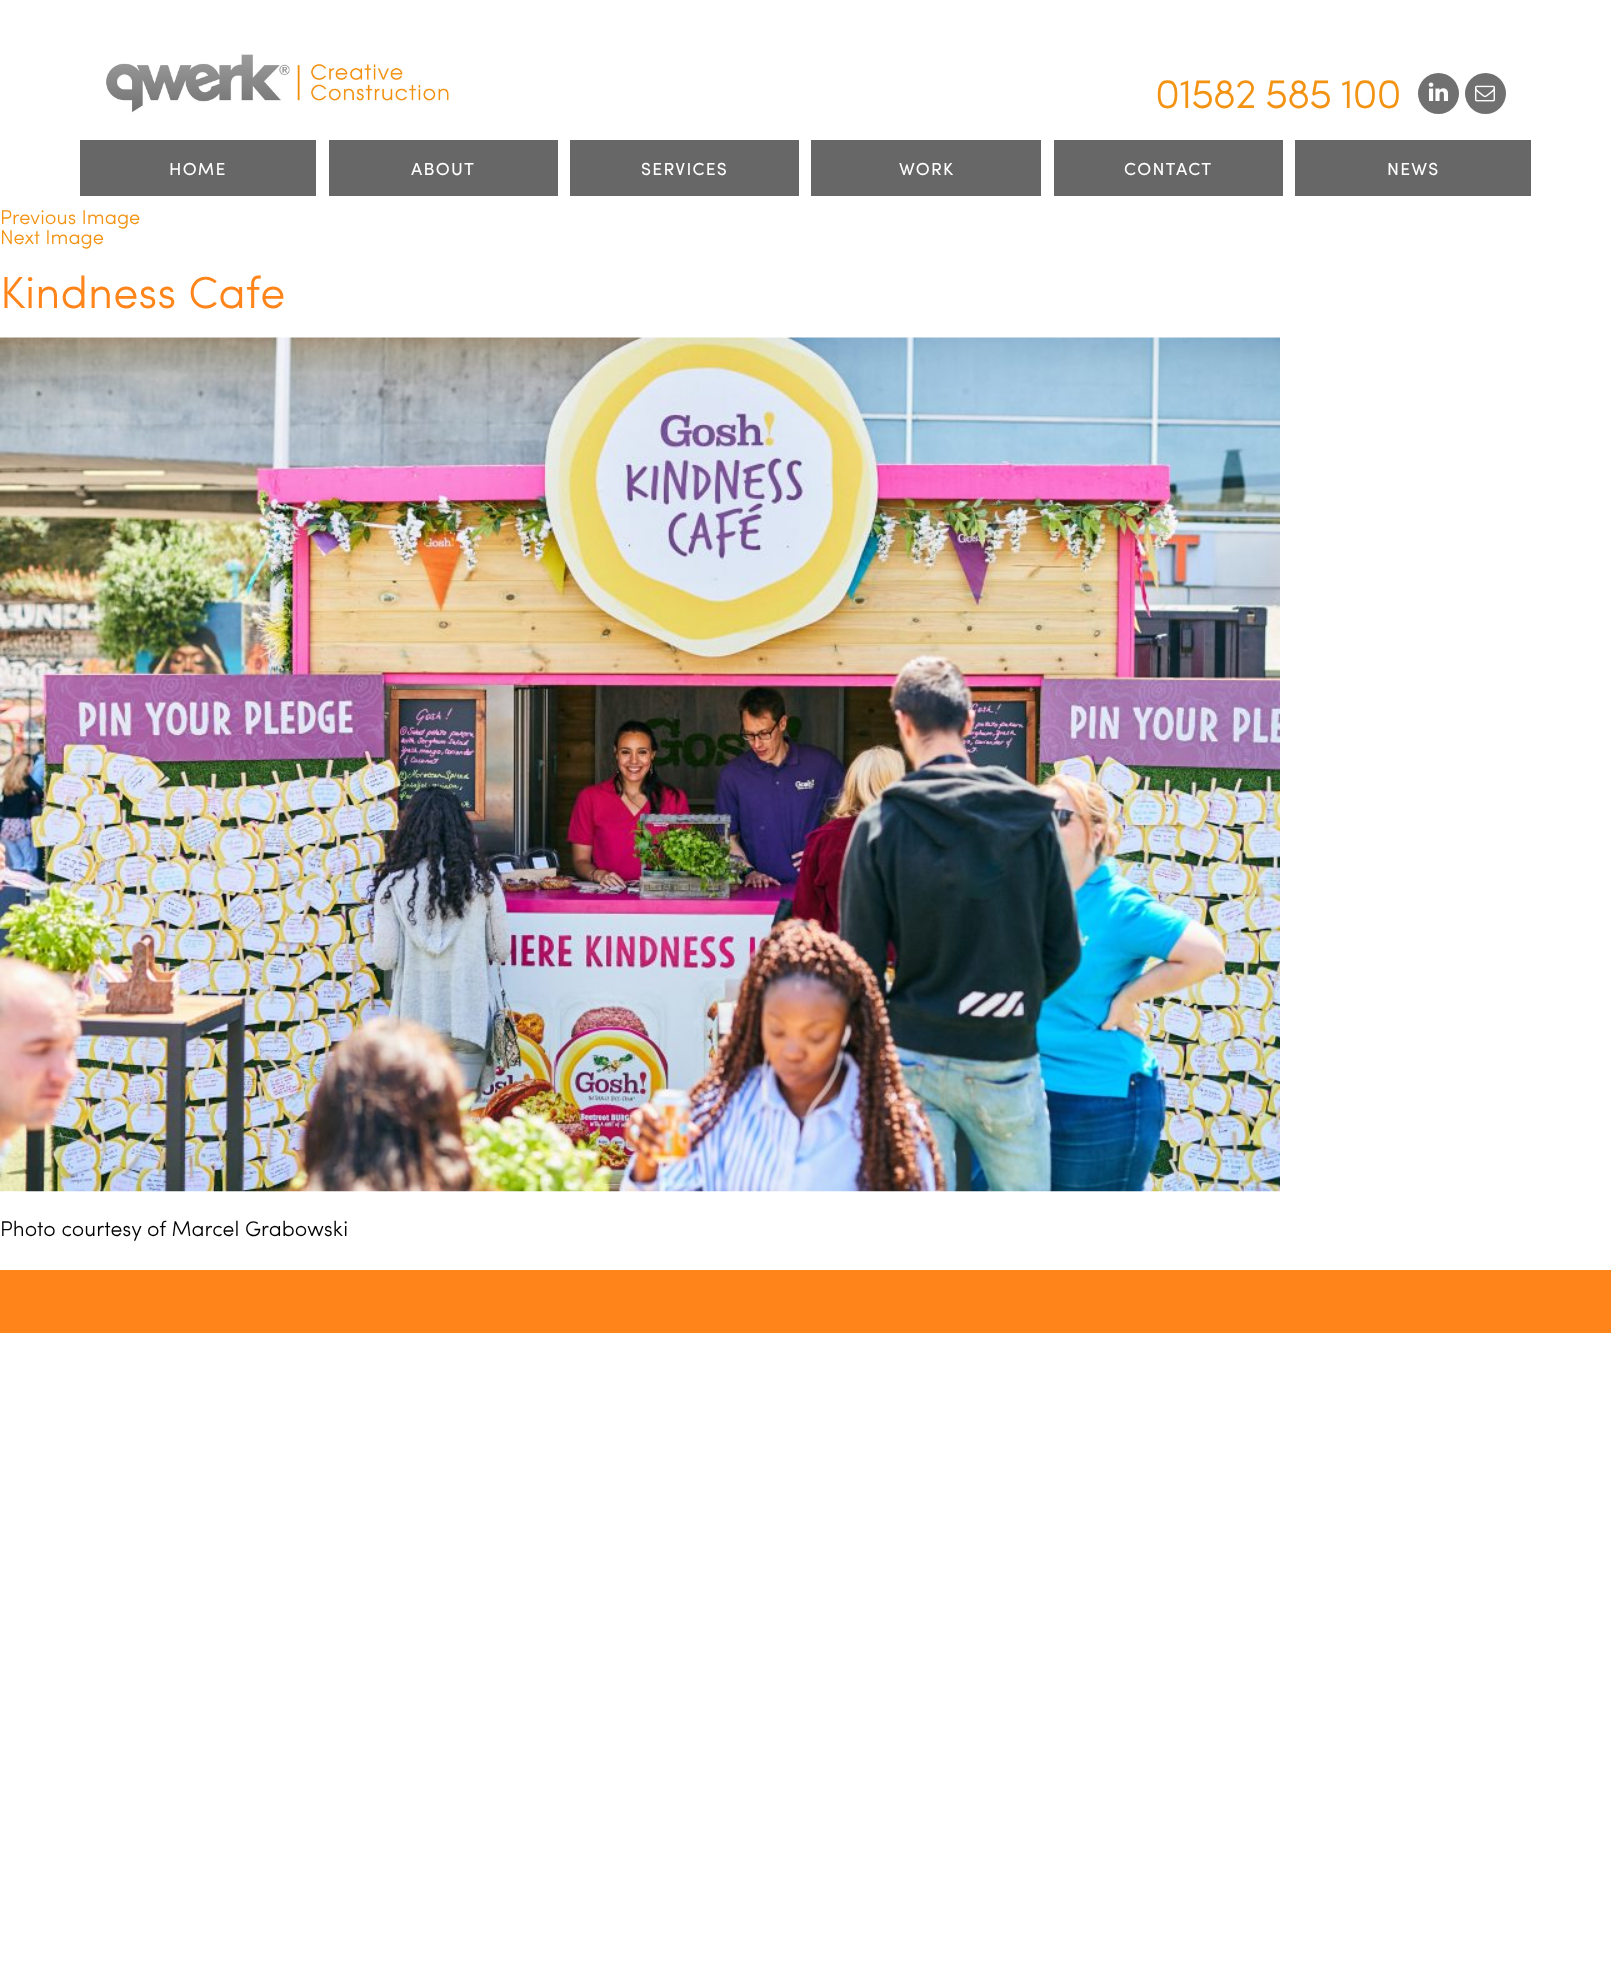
<svg xmlns="http://www.w3.org/2000/svg" width="1611" height="1987" viewBox="0 0 1611 1987">
  <rect width="100%" height="100%" fill="rgb(255,255,255)"/>
  <image x="106" y="54" width="343" height="59" href="pic1.png"/>
  <text x="1155" y="108" font-family="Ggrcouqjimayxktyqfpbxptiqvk" font-size="41.25" letter-spacing="-1.25" fill="rgb(243,147,19)">01582 585 100</text>
  <circle cx="1438.5" cy="93.5" r="20.5" fill="rgb(112,112,112)"/>
  <image x="1428" y="82" width="21" height="19" href="pic2.png"/>
  <circle cx="1485.5" cy="93.5" r="20.5" fill="rgb(112,112,112)"/>
  <image x="1475" y="85" width="20" height="17" href="pic3.png"/>
  <rect x="80" y="140" width="236" height="56" fill="rgb(103,103,103)"/>
  <text x="169" y="175" font-family="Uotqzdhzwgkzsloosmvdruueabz" font-size="17.5" letter-spacing="1.25" fill="rgb(255,255,255)">HOME</text>
  <rect x="329" y="140" width="229" height="56" fill="rgb(103,103,103)"/>
  <text x="411" y="175" font-family="Uotqzdhzwgkzsloosmvdruueabz" font-size="17.5" letter-spacing="1.25" fill="rgb(255,255,255)">ABOUT</text>
  <rect x="570" y="140" width="229" height="56" fill="rgb(103,103,103)"/>
  <text x="641" y="175" font-family="Uotqzdhzwgkzsloosmvdruueabz" font-size="17.5" letter-spacing="1.25" fill="rgb(255,255,255)">SERVICES</text>
  <rect x="811" y="140" width="230" height="56" fill="rgb(103,103,103)"/>
  <text x="899" y="175" font-family="Uotqzdhzwgkzsloosmvdruueabz" font-size="17.5" letter-spacing="1.25" fill="rgb(255,255,255)">WORK</text>
  <rect x="1054" y="140" width="229" height="56" fill="rgb(103,103,103)"/>
  <text x="1124" y="175" font-family="Uotqzdhzwgkzsloosmvdruueabz" font-size="17.5" letter-spacing="1.25" fill="rgb(255,255,255)">CONTACT</text>
  <rect x="1295" y="140" width="236" height="56" fill="rgb(103,103,103)"/>
  <text x="1387" y="175" font-family="Uotqzdhzwgkzsloosmvdruueabz" font-size="17.5" letter-spacing="1.25" fill="rgb(255,255,255)">NEWS</text>
  <g font-family="Ggrcouqjimayxktyqfpbxptiqvk" font-size="20" fill="rgb(243,147,19)">
    <text>
      <tspan x="0" y="224">Previous Image</tspan>
      <tspan x="0" y="244">Next Image</tspan>
    </text>
  </g>
  <text x="0" y="308" font-family="Ggrcouqjimayxktyqfpbxptiqvk" font-size="45" fill="rgb(255,132,26)">Kindness Cafe</text>
  <image x="0" y="337" width="1280" height="855" href="pic4.png"/>
  <text x="0" y="1236" font-family="Ggrcouqjimayxktyqfpbxptiqvk" font-size="21.25" fill="rgb(0,0,0)">Photo courtesy of Marcel Grabowski</text>
  <rect x="0" y="1270" width="1611" height="63" fill="rgb(255,132,26)"/>
</svg>
